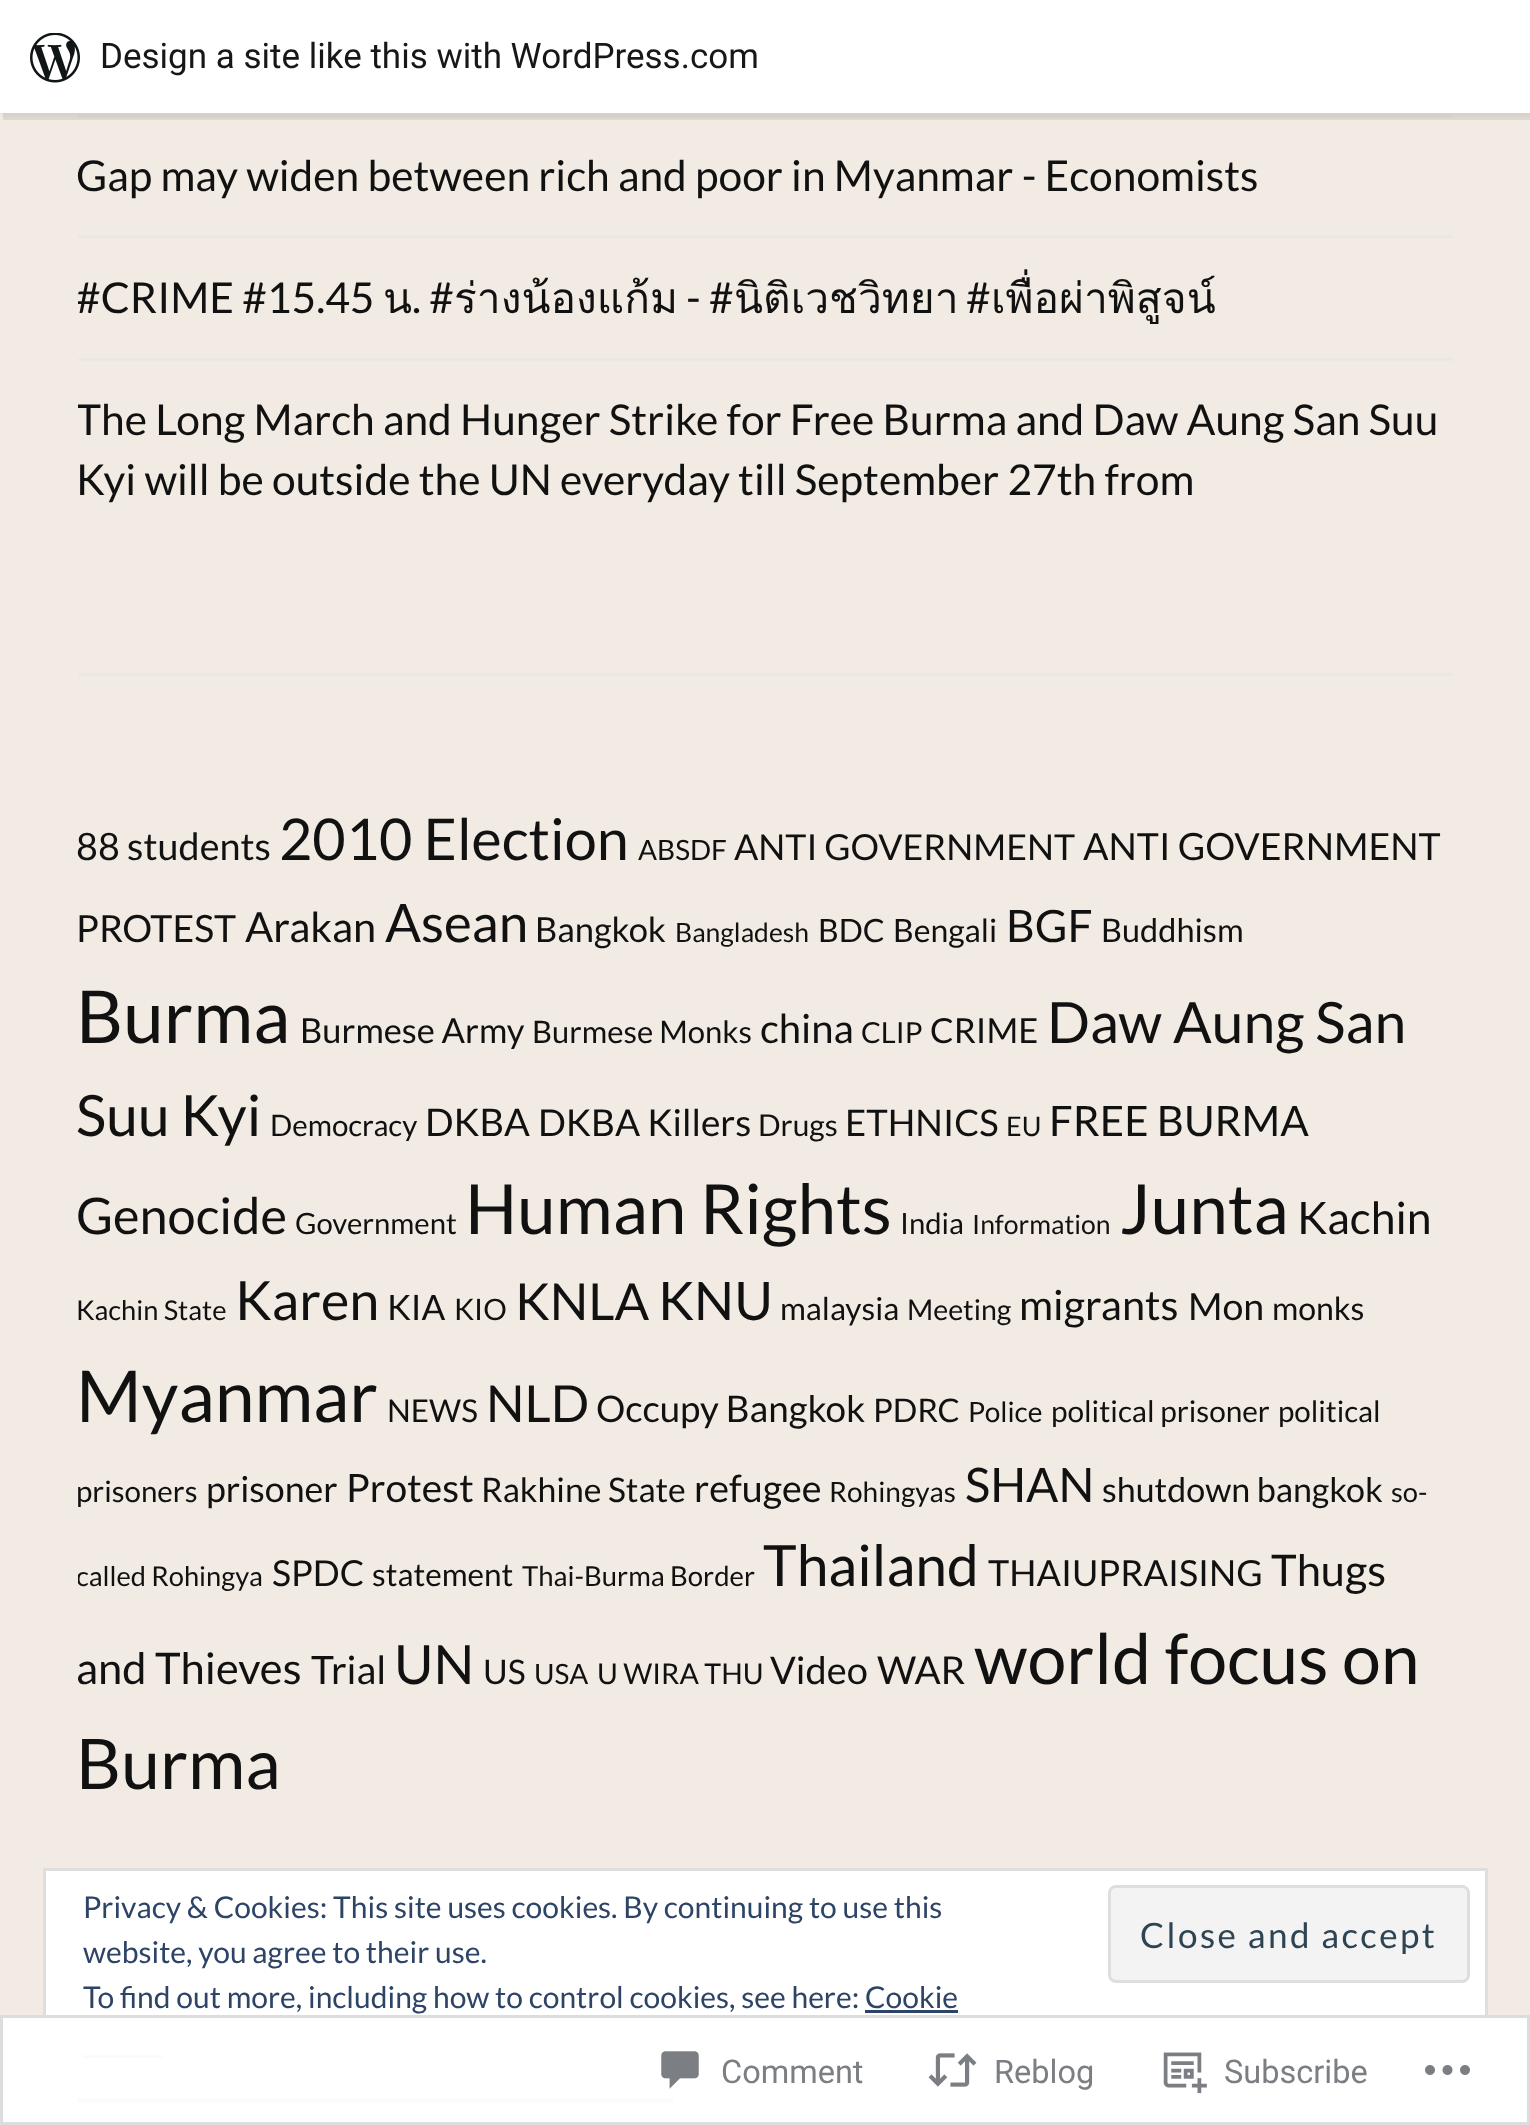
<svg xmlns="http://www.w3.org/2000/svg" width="1530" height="2125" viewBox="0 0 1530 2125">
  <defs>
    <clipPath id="clip1"><rect x="78" y="0" width="1375" height="573"/></clipPath>
    <clipPath id="clip2"><rect x="78" y="675" width="1375" height="1140"/></clipPath>
  </defs>
  <rect width="100%" height="100%" fill="rgb(241,235,227)"/>
  <rect x="78" y="115" width="1375" height="3" fill="rgb(235,231,225)"/>
  <rect x="0" y="3" width="1530" height="112" fill="rgba(0,0,0,0.05)" filter="blur(2.5px)"/>
  <path d="M3 112V120H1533V8H1530V112Z" fill="rgba(0,0,0,0.08)"/>
  <rect x="0" y="0" width="1530" height="113" fill="rgb(255,255,255)"/>
  <image x="30" y="33" width="50" height="50" href="pic1.png"/>
  <text x="100" y="68" font-family="Roboto" font-size="35" fill="rgb(23,23,23)">Design a site like this with WordPress.com</text>
  <rect x="78" y="235" width="1375" height="3" fill="rgb(235,231,225)"/>
  <text x="76" y="191" font-family="Lato" font-size="42.5" fill="rgb(17,17,17)">Gap may widen between rich and poor in Myanmar - Economists</text>
  <rect x="78" y="358" width="1375" height="3" fill="rgb(235,231,225)"/>
  <g clip-path="url(#clip1)">
    <text x="76" y="313" font-family="Lato" font-size="42.5" fill="rgb(17,17,17)">#CRIME #15.45</text>
  </g>
  <text x="383" y="313" font-family="Loma" font-size="42.5" fill="rgb(17,17,17)">น</text>
  <text x="412" y="313" font-family="Lato" font-size="42.5" fill="rgb(17,17,17)">. #</text>
  <text x="454" y="313" font-family="Loma" font-size="42.5" fill="rgb(17,17,17)">ร่างน้องแก้ม</text>
  <text x="686" y="313" font-family="Lato" font-size="42.5" fill="rgb(17,17,17)">- #</text>
  <text x="734" y="313" font-family="Loma" font-size="42.5" fill="rgb(17,17,17)">นิติเวชวิทยา</text>
  <text x="966" y="313" font-family="Lato" font-size="42.5" fill="rgb(17,17,17)">#</text>
  <text x="991" y="313" font-family="Loma" font-size="42.5" fill="rgb(17,17,17)">เพื่อผ่าพิสูจน์</text>
  <g clip-path="url(#clip1)">
    <text x="76" y="435" font-family="Lato" font-size="42.5" fill="rgb(17,17,17)">The Long March and Hunger Strike for Free Burma and Daw Aung San Suu</text>
  </g>
  <text x="76" y="495" font-family="Lato" font-size="42.5" fill="rgb(17,17,17)">Kyi will be outside the UN everyday till September 27th from</text>
  <rect x="78" y="673" width="1375" height="3" fill="rgb(235,231,225)"/>
  <text x="76" y="860" font-family="Lato" font-size="37.75" fill="rgb(17,17,17)">88 students</text>
  <text x="279" y="860" font-family="Lato" font-size="57.5" fill="rgb(17,17,17)">2010 Election</text>
  <text x="638" y="860" font-family="Lato" font-size="28" fill="rgb(17,17,17)">ABSDF</text>
  <text x="734" y="860" font-family="Lato" font-size="35.75" fill="rgb(17,17,17)">ANTI GOVERNMENT</text>
  <g font-family="Lato" font-size="37.5" fill="rgb(17,17,17)">
    <text x="1083" y="860">ANTI GOVERNMENT</text>
    <text x="76" y="942">PROTEST</text>
  </g>
  <text x="245" y="942" font-family="Lato" font-size="41.5" fill="rgb(17,17,17)">Arakan</text>
  <text x="385" y="942" font-family="Lato" font-size="53" fill="rgb(17,17,17)">Asean</text>
  <text x="535" y="942" font-family="Lato" font-size="34.5" fill="rgb(17,17,17)">Bangkok</text>
  <text x="675" y="942" font-family="Lato" font-size="26.5" fill="rgb(17,17,17)">Bangladesh</text>
  <g font-family="Lato" font-size="32" fill="rgb(17,17,17)">
    <text x="818" y="942">BDC</text>
    <text x="893" y="942">Bengali</text>
  </g>
  <text x="1006" y="942" font-family="Lato" font-size="44.5" fill="rgb(17,17,17)">BGF</text>
  <text x="1101" y="942" font-family="Lato" font-size="32.5" fill="rgb(17,17,17)">Buddhism</text>
  <text x="76" y="1043" font-family="Lato" font-size="73" fill="rgb(17,17,17)">Burma</text>
  <text x="300" y="1043" font-family="Lato" font-size="34.5" fill="rgb(17,17,17)">Burmese Army</text>
  <text x="532" y="1043" font-family="Lato" font-size="31" fill="rgb(17,17,17)">Burmese Monks</text>
  <text x="760" y="1043" font-family="Lato" font-size="40" fill="rgb(17,17,17)">china</text>
  <text x="861" y="1043" font-family="Lato" font-size="29" fill="rgb(17,17,17)">CLIP</text>
  <text x="930" y="1043" font-family="Lato" font-size="34.5" fill="rgb(17,17,17)">CRIME</text>
  <g font-family="Lato" font-size="57" fill="rgb(17,17,17)">
    <text x="1047" y="1043">Daw Aung San</text>
    <text x="76" y="1136">Suu Kyi</text>
  </g>
  <text x="270" y="1136" font-family="Lato" font-size="29.5" fill="rgb(17,17,17)">Democracy</text>
  <text x="425" y="1136" font-family="Lato" font-size="38" fill="rgb(17,17,17)">DKBA</text>
  <text x="538" y="1136" font-family="Lato" font-size="37" fill="rgb(17,17,17)">DKBA Killers</text>
  <text x="758" y="1136" font-family="Lato" font-size="30" fill="rgb(17,17,17)">Drugs</text>
  <text x="845" y="1136" font-family="Lato" font-size="36.5" fill="rgb(17,17,17)">ETHNICS</text>
  <text x="1006" y="1136" font-family="Lato" font-size="27" fill="rgb(17,17,17)">EU</text>
  <text x="1049" y="1136" font-family="Lato" font-size="42" fill="rgb(17,17,17)">FREE BURMA</text>
  <text x="76" y="1234" font-family="Lato" font-size="50.5" fill="rgb(17,17,17)">Genocide</text>
  <text x="295" y="1234" font-family="Lato" font-size="29.25" fill="rgb(17,17,17)">Government</text>
  <text x="465" y="1234" font-family="Lato" font-size="69.25" fill="rgb(17,17,17)">Human Rights</text>
  <text x="900" y="1234" font-family="Lato" font-size="29.25" fill="rgb(17,17,17)">India</text>
  <text x="972" y="1234" font-family="Lato" font-size="26.5" fill="rgb(17,17,17)">Information</text>
  <text x="1120" y="1234" font-family="Lato" font-size="69.25" fill="rgb(17,17,17)">Junta</text>
  <text x="1297" y="1234" font-family="Lato" font-size="44.5" fill="rgb(17,17,17)">Kachin</text>
  <text x="76" y="1320" font-family="Lato" font-size="27.25" fill="rgb(17,17,17)">Kachin State</text>
  <text x="235" y="1320" font-family="Lato" font-size="54" fill="rgb(17,17,17)">Karen</text>
  <text x="387" y="1320" font-family="Lato" font-size="35" fill="rgb(17,17,17)">KIA</text>
  <text x="454" y="1320" font-family="Lato" font-size="29.5" fill="rgb(17,17,17)">KIO</text>
  <text x="515" y="1320" font-family="Lato" font-size="51" fill="rgb(17,17,17)">KNLA</text>
  <text x="658" y="1320" font-family="Lato" font-size="53" fill="rgb(17,17,17)">KNU</text>
  <text x="780" y="1320" font-family="Lato" font-size="31.5" fill="rgb(17,17,17)">malaysia</text>
  <text x="907" y="1320" font-family="Lato" font-size="28.5" fill="rgb(17,17,17)">Meeting</text>
  <text x="1019" y="1320" font-family="Lato" font-size="41.5" fill="rgb(17,17,17)">migrants</text>
  <text x="1188" y="1320" font-family="Lato" font-size="37.5" fill="rgb(17,17,17)">Mon</text>
  <text x="1272" y="1320" font-family="Lato" font-size="32" fill="rgb(17,17,17)">monks</text>
  <text x="76" y="1422" font-family="Lato" font-size="71.5" fill="rgb(17,17,17)">Myanmar</text>
  <text x="387" y="1422" font-family="Lato" font-size="31.5" fill="rgb(17,17,17)">NEWS</text>
  <text x="486" y="1422" font-family="Lato" font-size="51" fill="rgb(17,17,17)">NLD</text>
  <text x="596" y="1422" font-family="Lato" font-size="36.75" fill="rgb(17,17,17)">Occupy Bangkok</text>
  <text x="873" y="1422" font-family="Lato" font-size="32.5" fill="rgb(17,17,17)">PDRC</text>
  <text x="968" y="1422" font-family="Lato" font-size="28" fill="rgb(17,17,17)">Police</text>
  <text x="1051" y="1422" font-family="Lato" font-size="29.75" fill="rgb(17,17,17)">political prisoner</text>
  <g font-family="Lato" font-size="29.5" fill="rgb(17,17,17)">
    <text x="1278" y="1422">political</text>
    <text x="76" y="1502">prisoners</text>
  </g>
  <text x="206" y="1502" font-family="Lato" font-size="35.75" fill="rgb(17,17,17)">prisoner</text>
  <text x="346" y="1502" font-family="Lato" font-size="39" fill="rgb(17,17,17)">Protest</text>
  <text x="481" y="1502" font-family="Lato" font-size="33.75" fill="rgb(17,17,17)">Rakhine State</text>
  <text x="694" y="1502" font-family="Lato" font-size="37.75" fill="rgb(17,17,17)">refugee</text>
  <text x="829" y="1502" font-family="Lato" font-size="28" fill="rgb(17,17,17)">Rohingyas</text>
  <text x="965" y="1502" font-family="Lato" font-size="47.5" fill="rgb(17,17,17)">SHAN</text>
  <text x="1102" y="1502" font-family="Lato" font-size="34" fill="rgb(17,17,17)">shutdown bangkok</text>
  <text x="1391" y="1502" font-family="Lato" font-size="27.25" fill="rgb(17,17,17)">so-</text>
  <g clip-path="url(#clip2)">
    <text x="76" y="1586" font-family="Lato" font-size="27.25" fill="rgb(17,17,17)">called Rohingya</text>
  </g>
  <text x="272" y="1586" font-family="Lato" font-size="35.75" fill="rgb(17,17,17)">SPDC</text>
  <text x="372" y="1586" font-family="Lato" font-size="31.5" fill="rgb(17,17,17)">statement</text>
  <text x="522" y="1586" font-family="Lato" font-size="27.5" fill="rgb(17,17,17)">Thai-Burma Border</text>
  <text x="763" y="1586" font-family="Lato" font-size="57" fill="rgb(17,17,17)">Thailand</text>
  <text x="988" y="1586" font-family="Lato" font-size="36" fill="rgb(17,17,17)">THAIUPRAISING</text>
  <g font-family="Lato" font-size="43.5" fill="rgb(17,17,17)">
    <text x="1271" y="1586">Thugs</text>
    <text x="76" y="1684">and Thieves</text>
  </g>
  <text x="311" y="1684" font-family="Lato" font-size="39" fill="rgb(17,17,17)">Trial</text>
  <text x="394" y="1684" font-family="Lato" font-size="54" fill="rgb(17,17,17)">UN</text>
  <text x="483" y="1684" font-family="Lato" font-size="33.75" fill="rgb(17,17,17)">US</text>
  <text x="534" y="1684" font-family="Lato" font-size="28" fill="rgb(17,17,17)">USA</text>
  <text x="597" y="1684" font-family="Lato" font-size="28.5" fill="rgb(17,17,17)">U WIRA THU</text>
  <text x="770" y="1684" font-family="Lato" font-size="38" fill="rgb(17,17,17)">Video</text>
  <text x="877" y="1684" font-family="Lato" font-size="38.5" fill="rgb(17,17,17)">WAR</text>
  <g font-family="Lato" font-size="69.75" fill="rgb(17,17,17)">
    <text x="974" y="1684">world focus on</text>
    <text x="76" y="1789">Burma</text>
  </g>
  <rect x="78" y="2098" width="595" height="5" fill="rgb(114,83,74)"/>
  <rect x="44.5" y="1869.5" width="1442" height="212" fill="rgb(255,255,255)" stroke="rgb(222,222,222)" stroke-width="3"/>
  <g font-family="Lato" font-size="30" fill="rgb(46,68,103)">
    <text>
      <tspan x="83" y="1918">Privacy &amp; Cookies: This site uses cookies. By continuing to use this</tspan>
      <tspan x="83" y="1963">website, you agree to their use.</tspan>
    </text>
  </g>
  <rect x="1109.5" y="1886.5" width="359" height="95" rx="6.5" fill="rgb(243,243,243)" stroke="rgb(222,222,222)" stroke-width="3"/>
  <text x="1140" y="1948" font-family="Lato" font-size="35" letter-spacing="2.5" fill="rgb(46,68,83)">Close and accept</text>
  <text x="83" y="2008" font-family="Lato" font-size="30" fill="rgb(46,68,103)">To find out more, including how to control cookies, see here: Cookie</text>
  <rect x="865" y="2010" width="93" height="3" fill="rgb(46,68,103)"/>
  <rect x="83" y="2055" width="80" height="3" fill="rgb(46,68,103)"/>
  <rect x="1.5" y="2016.5" width="1527" height="107" fill="rgba(255,255,255,0.98)" stroke="rgb(221,221,223)" stroke-width="3"/>
  <image x="661" y="2051" width="38" height="38" href="pic2.png"/>
  <text x="721" y="2083" font-family="Roboto" font-size="32.5" fill="rgb(123,127,132)">Comment</text>
  <image x="928" y="2053" width="49" height="34" href="pic3.png"/>
  <text x="994" y="2083" font-family="Roboto" font-size="32.5" fill="rgb(123,127,132)">Reblog</text>
  <image x="1163" y="2052" width="44" height="42" href="pic4.png"/>
  <text x="1224" y="2083" font-family="Roboto" font-size="32.5" fill="rgb(123,127,132)">Subscribe</text>
  <image x="1425" y="2065" width="45" height="10" href="pic5.png"/>
</svg>
